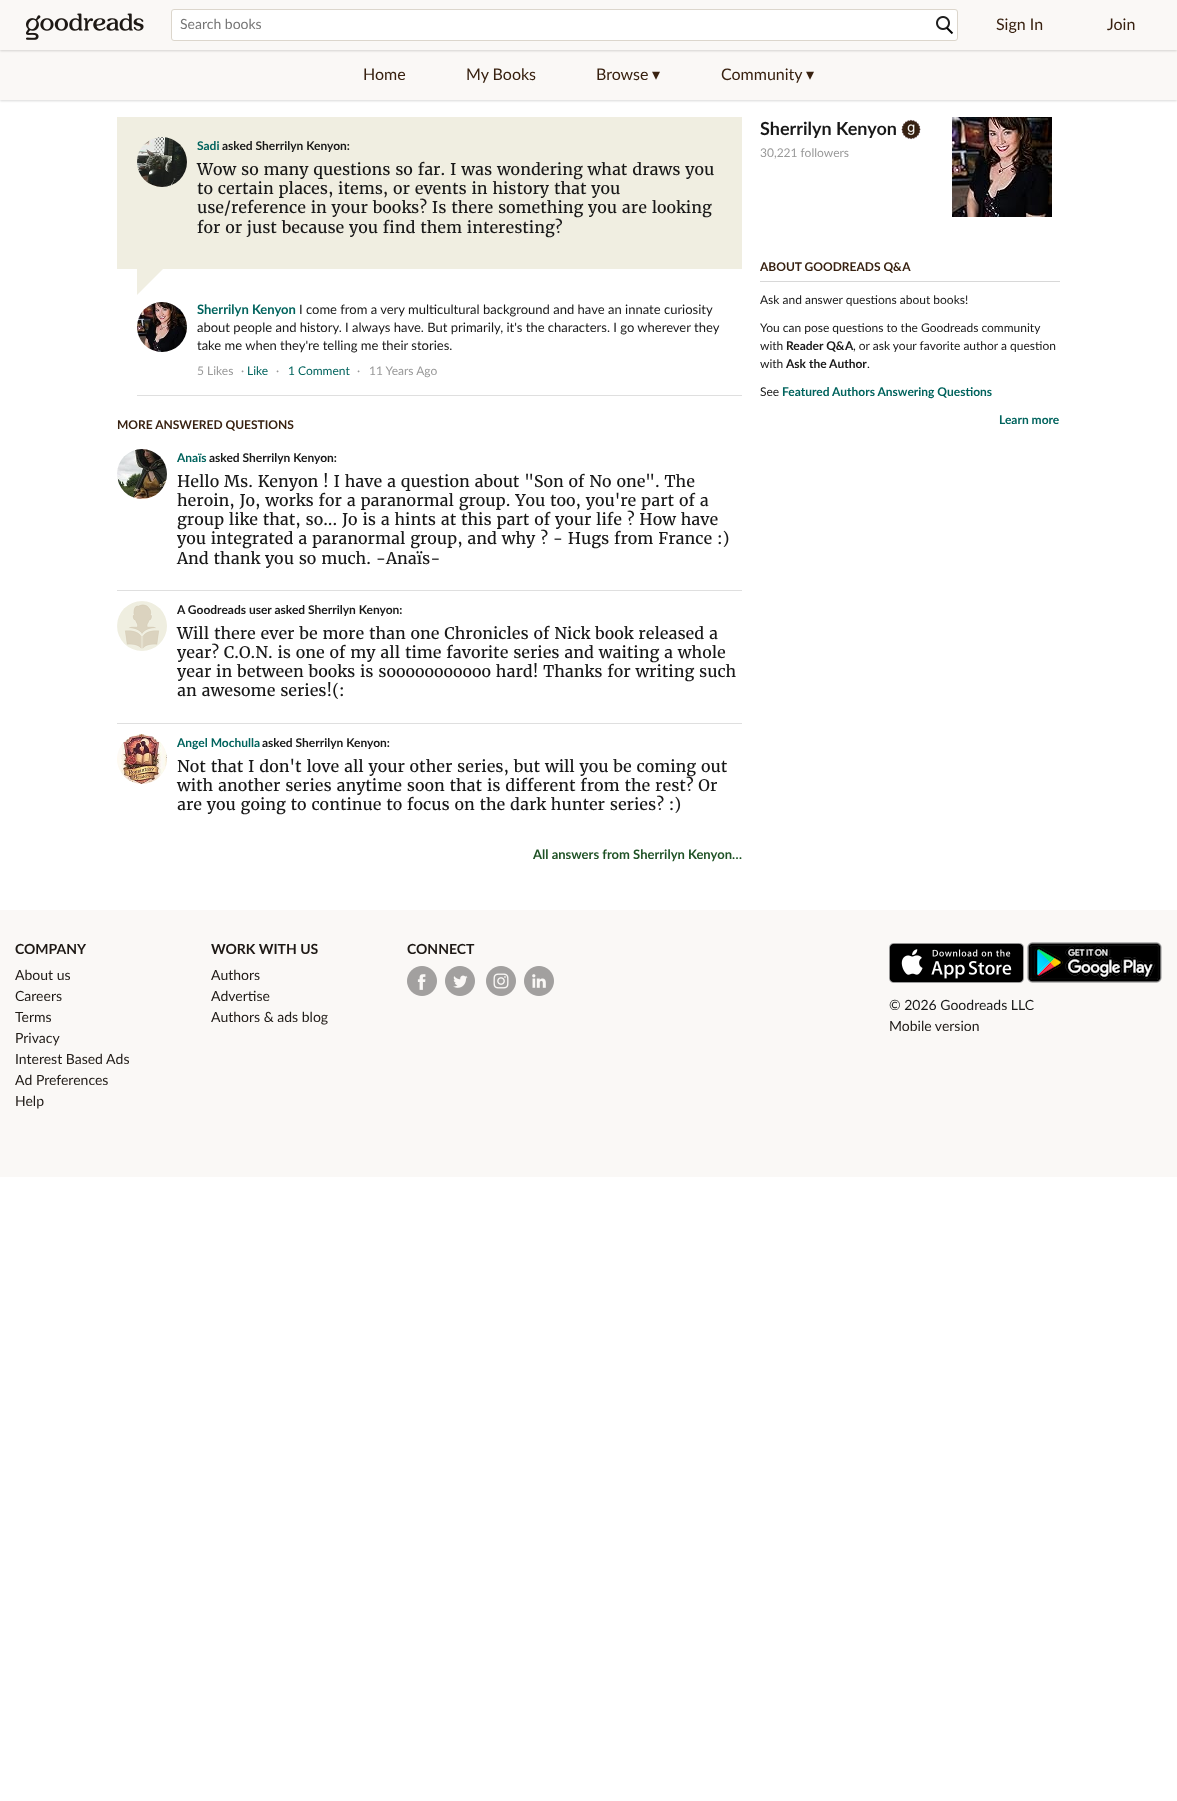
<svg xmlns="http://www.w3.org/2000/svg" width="1177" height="1801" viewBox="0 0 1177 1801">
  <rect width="100%" height="100%" fill="rgb(255,255,255)"/>
  <rect x="0" y="51" width="1177" height="50" fill="rgba(0,0,0,0.15)" filter="blur(1px)"/>
  <rect x="0" y="50" width="1177" height="50" fill="rgb(250,248,246)"/>
  <rect x="0" y="1" width="1177" height="50" fill="rgba(0,0,0,0.15)" filter="blur(1px)"/>
  <rect x="0" y="0" width="1177" height="50" fill="rgb(250,248,246)"/>
  <image x="26" y="13" width="118" height="27" href="pic1.png"/>
  <rect x="171.5" y="9.5" width="786" height="31" rx="2.5" fill="rgb(255,255,255)" stroke="rgb(220,214,204)"/>
  <text x="180" y="29" font-family="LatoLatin" font-size="14" fill="rgb(118,118,118)">Search books</text>
  <image x="936" y="16" width="18" height="19" href="pic2.png"/>
  <g font-family="LatoLatin" font-size="16" fill="rgb(56,33,16)">
    <text x="996" y="30">Sign In</text>
    <text x="1107" y="30">Join</text>
    <text x="363" y="80">Home</text>
    <text x="466" y="80">My Books</text>
    <text x="596" y="80">Browse</text>
  </g>
  <text x="652" y="80" font-family="DejaVu Sans" font-size="16" fill="rgb(56,33,16)">▾</text>
  <text x="721" y="80" font-family="LatoLatin" font-size="16" fill="rgb(56,33,16)">Community</text>
  <text x="806" y="80" font-family="DejaVu Sans" font-size="16" fill="rgb(56,33,16)">▾</text>
  <rect x="117" y="117" width="625" height="152" fill="rgb(240,238,225)"/>
  <image x="137" y="137" width="50" height="50" href="pic3.png"/>
  <text x="197" y="150" font-family="LatoLatin" font-size="12" font-weight="bold" fill="rgb(0,99,93)">Sadi</text>
  <text x="222" y="150" font-family="LatoLatin" font-size="12" font-weight="bold" fill="rgb(24,24,24)">asked Sherrilyn Kenyon:</text>
  <g font-family="Merriweather" font-size="16" fill="rgb(24,24,24)">
    <text>
      <tspan x="197" y="175">Wow so many questions so far. I was wondering what draws you</tspan>
      <tspan x="197" y="194">to certain places, items, or events in history that you</tspan>
      <tspan x="197" y="213">use/reference in your books? Is there something you are looking</tspan>
      <tspan x="197" y="233">for or just because you find them interesting?</tspan>
    </text>
  </g>
  <path d="M137 269H163L137 295Z" fill="rgb(240,238,225)"/>
  <rect x="137" y="395" width="605" height="1" fill="rgb(223,223,223)"/>
  <image x="137" y="302" width="50" height="50" href="pic4.png"/>
  <text x="197" y="314" font-family="LatoLatin" font-size="13" font-weight="bold" fill="rgb(0,99,93)">Sherrilyn Kenyon</text>
  <g font-family="LatoLatin" font-size="13" fill="rgb(24,24,24)">
    <text x="299" y="314">I come from a very multicultural background and have an innate curiosity</text>
    <text>
      <tspan x="197" y="332">about people and history. I always have. But primarily, it's the characters. I go wherever they</tspan>
      <tspan x="197" y="350">take me when they're telling me their stories.</tspan>
    </text>
  </g>
  <g font-family="LatoLatin" font-size="12" fill="rgb(153,153,153)">
    <text x="197" y="375">5 Likes</text>
    <text x="241" y="375">·</text>
  </g>
  <text x="247" y="375" font-family="LatoLatin" font-size="12" fill="rgb(0,99,93)">Like</text>
  <text x="276" y="375" font-family="LatoLatin" font-size="12" fill="rgb(153,153,153)">·</text>
  <text x="288" y="375" font-family="LatoLatin" font-size="12" fill="rgb(0,99,93)">1 Comment</text>
  <g font-family="LatoLatin" font-size="12" fill="rgb(153,153,153)">
    <text x="357" y="375">·</text>
    <text x="369" y="375">11 Years Ago</text>
  </g>
  <text x="117" y="429" font-family="LatoLatin" font-size="12" font-weight="bold" fill="rgb(56,33,16)">MORE ANSWERED QUESTIONS</text>
  <rect x="117" y="590" width="625" height="1" fill="rgb(223,223,223)"/>
  <image x="117" y="449" width="50" height="50" href="pic5.png"/>
  <text x="177" y="462" font-family="LatoLatin" font-size="12" font-weight="bold" fill="rgb(0,99,93)">Anaïs</text>
  <text x="209" y="462" font-family="LatoLatin" font-size="12" font-weight="bold" fill="rgb(24,24,24)">asked Sherrilyn Kenyon:</text>
  <g font-family="Merriweather" font-size="16" fill="rgb(24,24,24)">
    <text>
      <tspan x="177" y="487">Hello Ms. Kenyon ! I have a question about "Son of No one". The</tspan>
      <tspan x="177" y="506">heroin, Jo, works for a paranormal group. You too, you're part of a</tspan>
      <tspan x="177" y="525">group like that, so... Jo is a hints at this part of your life ? How have</tspan>
      <tspan x="177" y="544">you integrated a paranormal group, and why ? - Hugs from France :)</tspan>
      <tspan x="177" y="564">And thank you so much. -Anaïs-</tspan>
    </text>
  </g>
  <rect x="117" y="723" width="625" height="1" fill="rgb(223,223,223)"/>
  <image x="117" y="601" width="50" height="50" href="pic6.png"/>
  <text x="177" y="614" font-family="LatoLatin" font-size="12" font-weight="bold" fill="rgb(24,24,24)">A Goodreads user asked Sherrilyn Kenyon:</text>
  <g font-family="Merriweather" font-size="16" fill="rgb(24,24,24)">
    <text>
      <tspan x="177" y="639">Will there ever be more than one Chronicles of Nick book released a</tspan>
      <tspan x="177" y="658">year? C.O.N. is one of my all time favorite series and waiting a whole</tspan>
      <tspan x="177" y="677">year in between books is sooooooooooo hard! Thanks for writing such</tspan>
      <tspan x="177" y="696">an awesome series!(:</tspan>
    </text>
  </g>
  <image x="117" y="734" width="50" height="50" href="pic7.png"/>
  <text x="177" y="747" font-family="LatoLatin" font-size="12" font-weight="bold" fill="rgb(0,99,93)">Angel Mochulla</text>
  <text x="262" y="747" font-family="LatoLatin" font-size="12" font-weight="bold" fill="rgb(24,24,24)">asked Sherrilyn Kenyon:</text>
  <g font-family="Merriweather" font-size="16" fill="rgb(24,24,24)">
    <text>
      <tspan x="177" y="772">Not that I don't love all your other series, but will you be coming out</tspan>
      <tspan x="177" y="791">with another series anytime soon that is different from the rest? Or</tspan>
      <tspan x="177" y="810">are you going to continue to focus on the dark hunter series? :)</tspan>
    </text>
  </g>
  <text x="533" y="859" font-family="LatoLatin" font-size="13" font-weight="bold" fill="rgb(31,82,37)">All answers from Sherrilyn Kenyon…</text>
  <text x="760" y="135" font-family="LatoLatin" font-size="18" font-weight="bold" fill="rgb(24,24,24)">Sherrilyn Kenyon</text>
  <image x="901" y="119" width="20" height="21" href="pic8.png"/>
  <text x="760" y="157" font-family="LatoLatin" font-size="12" fill="rgb(153,153,153)">30,221 followers</text>
  <image x="952" y="117" width="100" height="100" href="pic9.png"/>
  <rect x="760" y="281" width="300" height="1" fill="rgb(216,216,216)"/>
  <text x="760" y="271" font-family="LatoLatin" font-size="12" font-weight="bold" fill="rgb(56,33,16)">ABOUT GOODREADS Q&amp;A</text>
  <g font-family="LatoLatin" font-size="12" fill="rgb(24,24,24)">
    <text x="760" y="304">Ask and answer questions about books!</text>
    <text>
      <tspan x="760" y="332">You can pose questions to the Goodreads community</tspan>
      <tspan x="760" y="350">with</tspan>
    </text>
  </g>
  <text x="786" y="350" font-family="LatoLatin" font-size="12" font-weight="bold" fill="rgb(24,24,24)">Reader Q&amp;A</text>
  <g font-family="LatoLatin" font-size="12" fill="rgb(24,24,24)">
    <text x="853" y="350">, or ask your favorite author a question</text>
    <text x="760" y="368">with</text>
  </g>
  <text x="786" y="368" font-family="LatoLatin" font-size="12" font-weight="bold" fill="rgb(24,24,24)">Ask the Author</text>
  <g font-family="LatoLatin" font-size="12" fill="rgb(24,24,24)">
    <text x="867" y="368">.</text>
    <text x="760" y="396">See</text>
  </g>
  <g font-family="LatoLatin" font-size="12" font-weight="bold" fill="rgb(0,99,93)">
    <text x="782" y="396">Featured Authors Answering Questions</text>
    <text x="999" y="424">Learn more</text>
  </g>
  <rect x="0" y="910" width="1177" height="267" fill="rgb(250,248,246)"/>
  <text x="15" y="954" font-family="LatoLatin" font-size="14" font-weight="bold" fill="rgb(30,25,21)">COMPANY</text>
  <g font-family="LatoLatin" font-size="14" fill="rgb(30,25,21)">
    <text>
      <tspan x="15" y="980">About us</tspan>
      <tspan x="15" y="1001">Careers</tspan>
      <tspan x="15" y="1022">Terms</tspan>
      <tspan x="15" y="1043">Privacy</tspan>
      <tspan x="15" y="1064">Interest Based Ads</tspan>
      <tspan x="15" y="1085">Ad Preferences</tspan>
      <tspan x="15" y="1106">Help</tspan>
    </text>
  </g>
  <text x="211" y="954" font-family="LatoLatin" font-size="14" font-weight="bold" fill="rgb(30,25,21)">WORK WITH US</text>
  <g font-family="LatoLatin" font-size="14" fill="rgb(30,25,21)">
    <text>
      <tspan x="211" y="980">Authors</tspan>
      <tspan x="211" y="1001">Advertise</tspan>
      <tspan x="211" y="1022">Authors &amp; ads blog</tspan>
    </text>
  </g>
  <text x="407" y="954" font-family="LatoLatin" font-size="14" font-weight="bold" fill="rgb(30,25,21)">CONNECT</text>
  <image x="407" y="966" width="30" height="30" href="pic10.png"/>
  <image x="445" y="966" width="30" height="30" href="pic11.png"/>
  <image x="486" y="966" width="30" height="30" href="pic12.png"/>
  <image x="524" y="966" width="30" height="30" href="pic13.png"/>
  <image x="889" y="943" width="135" height="40" href="pic14.png"/>
  <image x="1027" y="942" width="135" height="41" href="pic15.png"/>
  <text x="889" y="1010" font-family="LatoLatin" font-size="14" fill="rgb(24,24,24)">© 2026 Goodreads LLC</text>
  <text x="889" y="1031" font-family="LatoLatin" font-size="14" fill="rgb(30,25,21)">Mobile version</text>
</svg>
